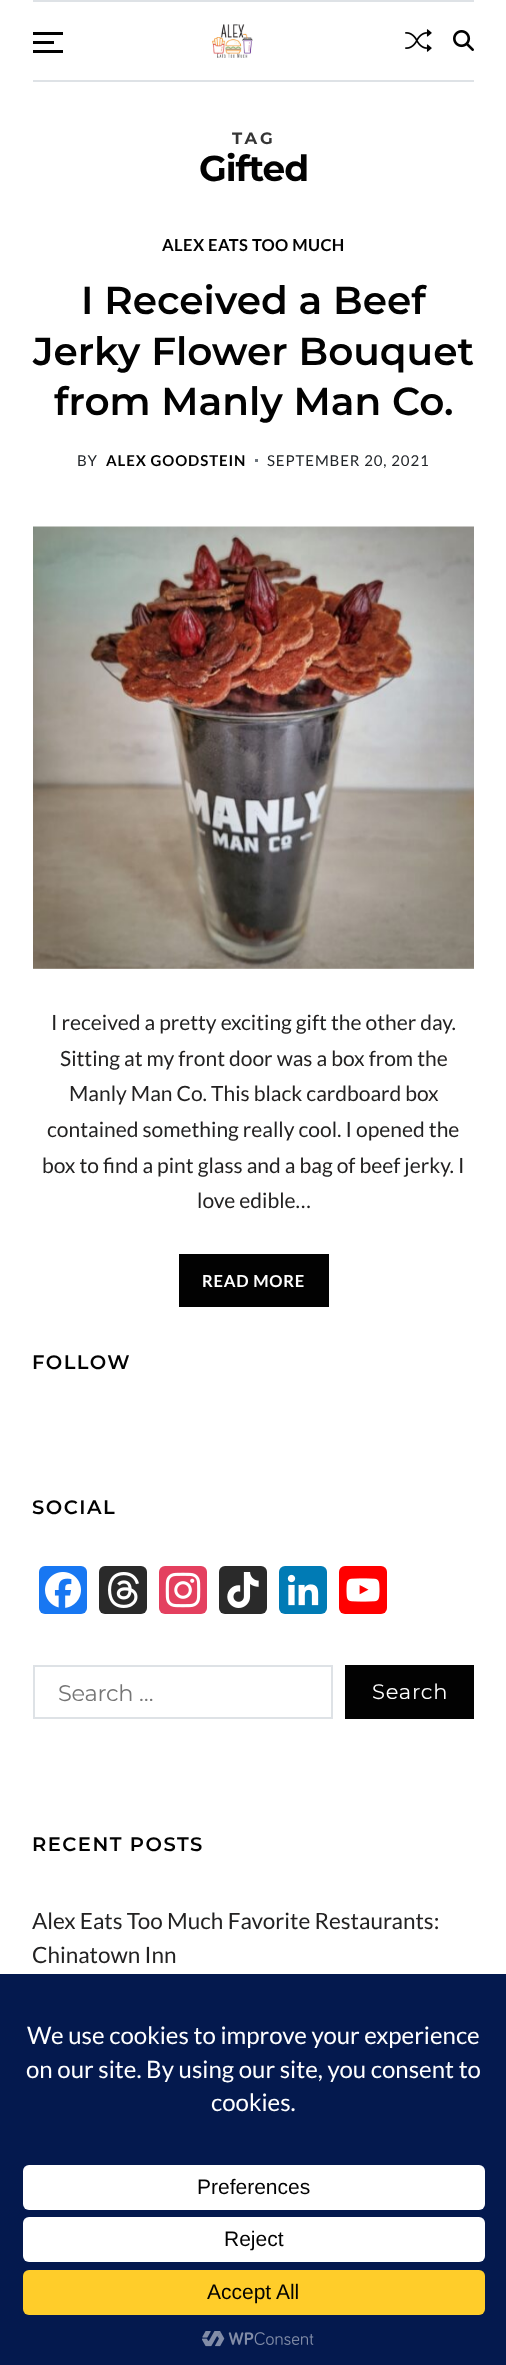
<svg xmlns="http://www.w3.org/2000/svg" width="506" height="2365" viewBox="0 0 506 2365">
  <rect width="100%" height="100%" fill="rgb(255,255,255)"/>
  <rect x="33" y="0" width="441" height="2" fill="rgb(222,226,230)"/>
  <rect x="33" y="80" width="441" height="2" fill="rgb(222,226,230)"/>
  <rect x="33" y="32" width="30" height="3" fill="rgb(1,1,1)"/>
  <rect x="33" y="41" width="21" height="3" fill="rgb(1,1,1)"/>
  <rect x="33" y="50" width="30" height="3" fill="rgb(1,1,1)"/>
  <image x="212" y="24" width="41" height="34" href="pic1.png"/>
  <image x="405" y="29" width="27" height="23" href="pic2.png"/>
  <image x="453" y="30" width="21" height="21" href="pic3.png"/>
  <text x="232" y="144" font-family="Montserrat" font-size="16.5" font-weight="bold" letter-spacing="3" fill="rgb(53,53,53)">TAG</text>
  <text x="199" y="181" font-family="Montserrat" font-size="36" font-weight="bold" letter-spacing="-1" fill="rgb(2,2,2)">Gifted</text>
  <text x="162" y="251" font-family="Lato" font-size="16.5" font-weight="bold" letter-spacing="0.4" fill="rgb(2,2,2)">ALEX EATS TOO MUCH</text>
  <g font-family="Montserrat" font-size="39" font-weight="600" fill="rgb(2,2,2)">
    <text x="81" y="314">I Received a Beef</text>
    <text x="33" y="365">Jerky Flower Bouquet</text>
    <text x="54" y="415">from Manly Man Co.</text>
  </g>
  <text x="77" y="466" font-family="Lato" font-size="15" letter-spacing="0.9" fill="rgb(33,37,41)">BY</text>
  <text x="106" y="466" font-family="Lato" font-size="15" font-weight="bold" letter-spacing="0.9" fill="rgb(2,2,2)">ALEX GOODSTEIN</text>
  <rect x="255" y="459" width="3" height="3" fill="rgb(108,117,125)"/>
  <text x="267" y="466" font-family="Lato" font-size="15" letter-spacing="0.9" fill="rgb(33,37,41)">SEPTEMBER 20, 2021</text>
  <image x="33" y="526" width="441" height="443" href="pic4.png"/>
  <g font-family="Lato" font-size="21" fill="rgb(35,34,34)">
    <text x="51" y="1030">I received a pretty exciting gift the other day.</text>
    <text x="60" y="1066">Sitting at my front door was a box from the</text>
    <text x="69" y="1101">Manly Man Co. This black cardboard box</text>
    <text x="47" y="1137">contained something really cool. I opened the</text>
    <text x="42" y="1173">box to find a pint glass and a bag of beef jerky. I</text>
    <text x="197" y="1208">love edible…</text>
  </g>
  <rect x="179" y="1254" width="150" height="53" fill="rgb(2,2,2)"/>
  <text x="202" y="1287" font-family="Lato" font-size="16.5" font-weight="bold" letter-spacing="0.75" fill="rgb(255,255,255)">READ MORE</text>
  <g font-family="Montserrat" font-size="19.5" font-weight="600" letter-spacing="1.5" fill="rgb(2,2,2)">
    <text x="32" y="1369">FOLLOW</text>
    <text x="32" y="1514">SOCIAL</text>
  </g>
  <rect x="39" y="1566" width="48" height="48" rx="6" fill="rgb(24,119,242)"/>
  <image x="45" y="1572" width="36" height="36" href="pic5.png"/>
  <rect x="99" y="1566" width="48" height="48" rx="6" fill="rgb(42,42,42)"/>
  <image x="108" y="1572" width="31" height="36" href="pic6.png"/>
  <rect x="159" y="1566" width="48" height="48" rx="6" fill="rgb(228,64,95)"/>
  <image x="165" y="1572" width="36" height="36" href="pic7.png"/>
  <rect x="219" y="1566" width="48" height="48" rx="6" fill="rgb(42,42,42)"/>
  <image x="227" y="1572" width="32" height="36" href="pic8.png"/>
  <rect x="279" y="1566" width="48" height="48" rx="6" fill="rgb(0,123,181)"/>
  <image x="287" y="1574" width="32" height="32" href="pic9.png"/>
  <rect x="339" y="1566" width="48" height="48" rx="6" fill="rgb(255,0,0)"/>
  <image x="346" y="1578" width="34" height="24" href="pic10.png"/>
  <rect x="34" y="1666" width="298" height="52" fill="none" stroke="rgb(222,226,230)" stroke-width="2"/>
  <text x="58" y="1701" font-family="Montserrat" font-size="22.5" letter-spacing="-0.25" fill="rgb(117,117,117)">Search …</text>
  <rect x="345" y="1665" width="129" height="54" fill="rgb(2,2,2)"/>
  <text x="372" y="1699" font-family="Montserrat" font-size="21" letter-spacing="0.75" fill="rgb(255,255,255)">Search</text>
  <text x="32" y="1851" font-family="Montserrat" font-size="19.5" font-weight="600" letter-spacing="1.5" fill="rgb(2,2,2)">RECENT POSTS</text>
  <g font-family="Lato" font-size="22.5" fill="rgb(35,34,34)">
    <text>
      <tspan x="32" y="1929">Alex Eats Too Much Favorite Restaurants:</tspan>
      <tspan x="32" y="1963">Chinatown Inn</tspan>
    </text>
  </g>
  <rect x="0" y="1974" width="506" height="391" fill="rgb(4,25,78)"/>
  <g font-family="Lato" font-size="24" fill="rgb(255,255,255)">
    <text x="27" y="2044">We use cookies to improve your experience</text>
    <text x="26" y="2078">on our site. By using our site, you consent to</text>
    <text x="211" y="2111">cookies.</text>
  </g>
  <rect x="23" y="2165" width="462" height="45" rx="6" fill="rgb(255,255,255)"/>
  <text x="197" y="2194" font-family="Liberation Sans" font-size="21" fill="rgb(2,2,2)">Preferences</text>
  <rect x="23" y="2217" width="462" height="45" rx="6" fill="rgb(255,255,255)"/>
  <text x="224" y="2246" font-family="Liberation Sans" font-size="21" fill="rgb(2,2,2)">Reject</text>
  <rect x="23" y="2270" width="462" height="45" rx="6" fill="rgb(255,205,42)"/>
  <text x="207" y="2299" font-family="Liberation Sans" font-size="21" fill="rgb(2,2,2)">Accept All</text>
  <image x="202" y="2331" width="112" height="16" href="pic11.png"/>
</svg>
